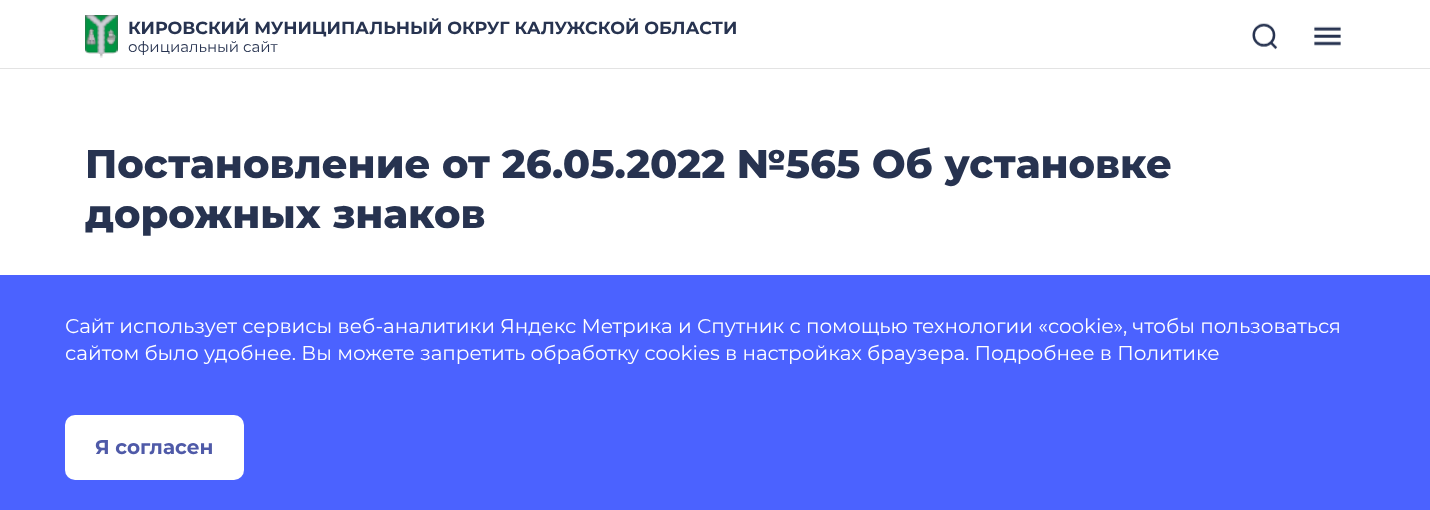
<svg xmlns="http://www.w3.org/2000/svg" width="1430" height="510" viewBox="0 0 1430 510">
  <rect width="100%" height="100%" fill="rgb(255,255,255)"/>
  <rect x="0" y="68" width="1430" height="1" fill="rgb(227,227,227)"/>
  <image x="85" y="15" width="33" height="43" href="pic1.png"/>
  <text x="128" y="34" font-family="Montserrat" font-size="17.5" font-weight="bold" fill="rgb(39,51,80)">КИРОВСКИЙ МУНИЦИПАЛЬНЫЙ ОКРУГ КАЛУЖСКОЙ ОБЛАСТИ</text>
  <text x="128" y="52" font-family="Montserrat" font-size="15" fill="rgb(39,51,80)">официальный сайт</text>
  <image x="1252" y="23" width="26" height="27" href="pic2.png"/>
  <image x="1314" y="26" width="27" height="20" href="pic3.png"/>
  <g font-family="Montserrat" font-size="40" font-weight="800" fill="rgb(39,51,80)">
    <text>
      <tspan x="85" y="178">Постановление от 26.05.2022 №565 Об установке</tspan>
      <tspan x="85" y="228">дорожных знаков</tspan>
    </text>
  </g>
  <rect x="0" y="275" width="1430" height="235" fill="rgb(75,98,255)"/>
  <g font-family="Montserrat" font-size="20" fill="rgb(255,255,255)">
    <text>
      <tspan x="65" y="333">Сайт использует сервисы веб-аналитики Яндекс Метрика и Спутник с помощью технологии «cookie», чтобы пользоваться</tspan>
      <tspan x="65" y="360">сайтом было удобнее. Вы можете запретить обработку cookies в настройках браузера. Подробнее в Политике</tspan>
    </text>
  </g>
  <rect x="65" y="415" width="179" height="65" rx="10" fill="rgb(255,255,255)"/>
  <text x="95" y="454" font-family="Montserrat" font-size="20" font-weight="bold" fill="rgb(79,90,168)">Я согласен</text>
</svg>
